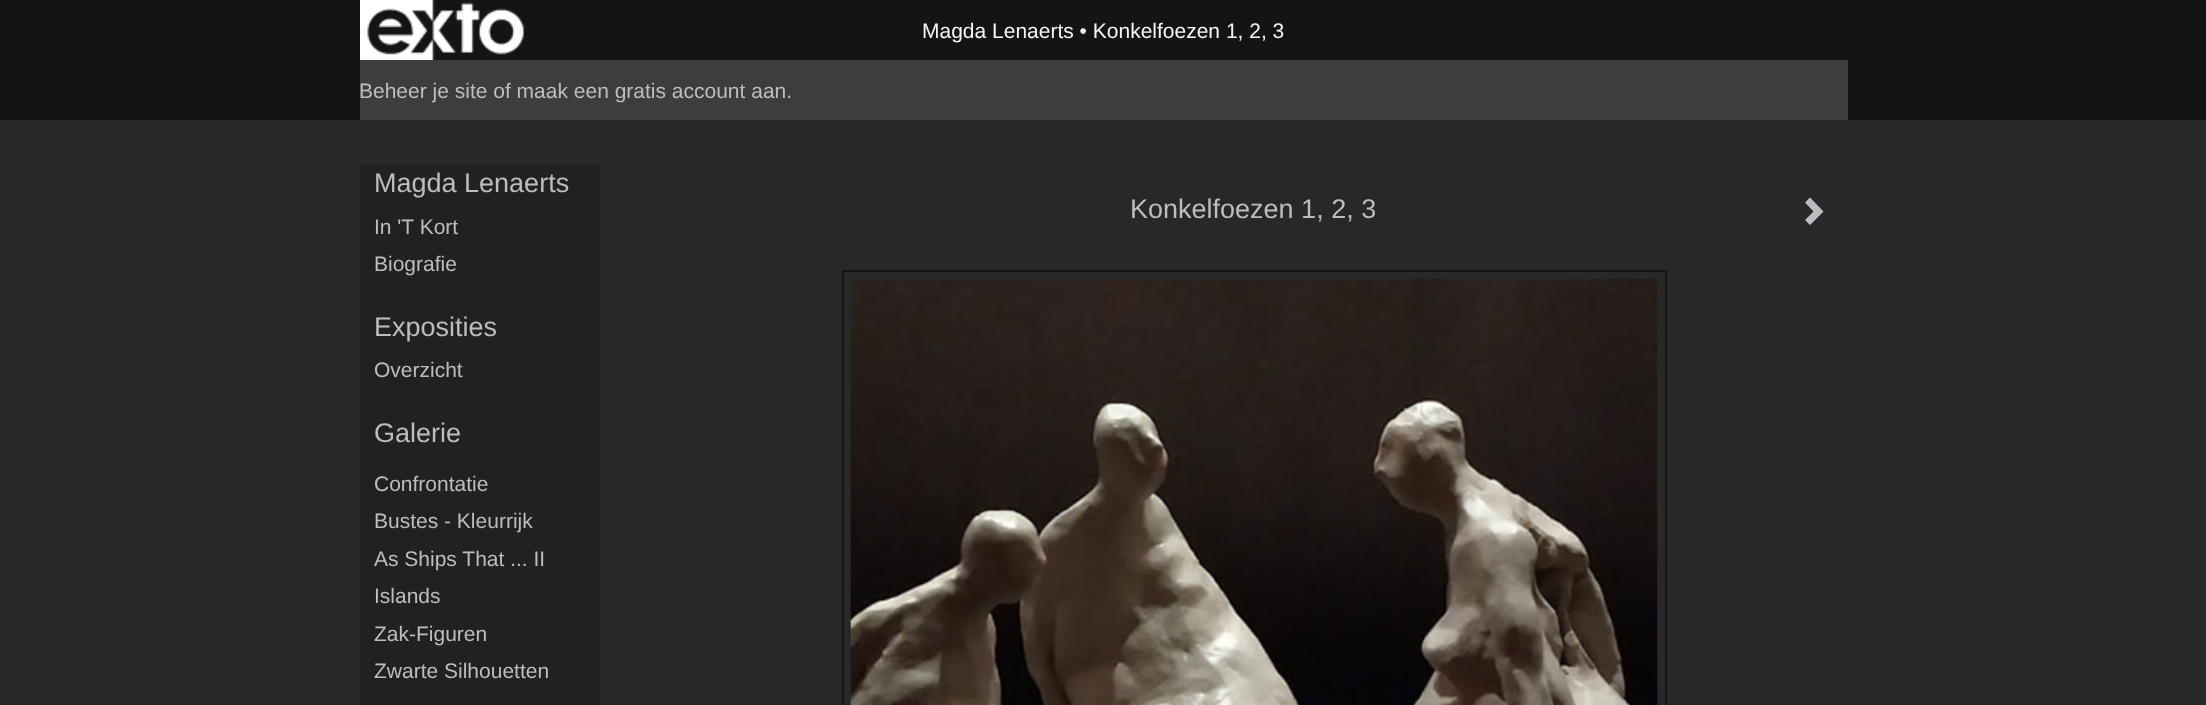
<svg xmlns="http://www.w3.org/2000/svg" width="2206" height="705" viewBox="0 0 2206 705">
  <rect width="100%" height="100%" fill="rgb(40,40,40)"/>
  <rect x="0" y="0" width="2206" height="120" fill="rgb(20,20,20)"/>
  <image x="360" y="0" width="164" height="60" href="pic1.png"/>
  <text x="922" y="38" font-family="Liberation Sans" font-size="21" fill="rgb(246,245,245)">Magda Lenaerts • Konkelfoezen 1, 2, 3</text>
  <rect x="360" y="60" width="1488" height="60" fill="rgb(63,60,60)"/>
  <text x="359" y="98" font-family="Liberation Sans" font-size="21" fill="rgb(188,189,192)">Beheer je site of maak een gratis account aan.</text>
  <rect x="360" y="165" width="240" height="540" fill="rgb(33,33,33)"/>
  <text x="374" y="192" font-family="Liberation Sans" font-size="27" fill="rgb(188,189,192)">Magda Lenaerts</text>
  <g font-family="Liberation Sans" font-size="21" fill="rgb(188,189,192)">
    <text>
      <tspan x="374" y="234">In 'T Kort</tspan>
      <tspan x="374" y="271">Biografie</tspan>
    </text>
  </g>
  <text x="374" y="336" font-family="Liberation Sans" font-size="27" fill="rgb(188,189,192)">Exposities</text>
  <text x="374" y="377" font-family="Liberation Sans" font-size="21" fill="rgb(188,189,192)">Overzicht</text>
  <text x="374" y="442" font-family="Liberation Sans" font-size="27" fill="rgb(188,189,192)">Galerie</text>
  <g font-family="Liberation Sans" font-size="21" fill="rgb(188,189,192)">
    <text>
      <tspan x="374" y="491">Confrontatie</tspan>
      <tspan x="374" y="528">Bustes - Kleurrijk</tspan>
      <tspan x="374" y="566">As Ships That ... II</tspan>
      <tspan x="374" y="603">Islands</tspan>
      <tspan x="374" y="641">Zak-Figuren</tspan>
      <tspan x="374" y="678">Zwarte Silhouetten</tspan>
    </text>
  </g>
  <text x="1130" y="218" font-family="Liberation Sans" font-size="27" fill="rgb(188,189,192)">Konkelfoezen 1, 2, 3</text>
  <path d="M1823.5 211.5L1810 225L1805 220L1813.5 211.5L1805 202.5L1810 197.5Z" fill="rgb(188,189,192)"/>
  <rect x="843" y="271" width="823" height="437" rx="0.5" fill="none" stroke="rgb(20,20,20)" stroke-width="2"/>
  <image x="850" y="279" width="808" height="426" href="pic2.png"/>
</svg>
